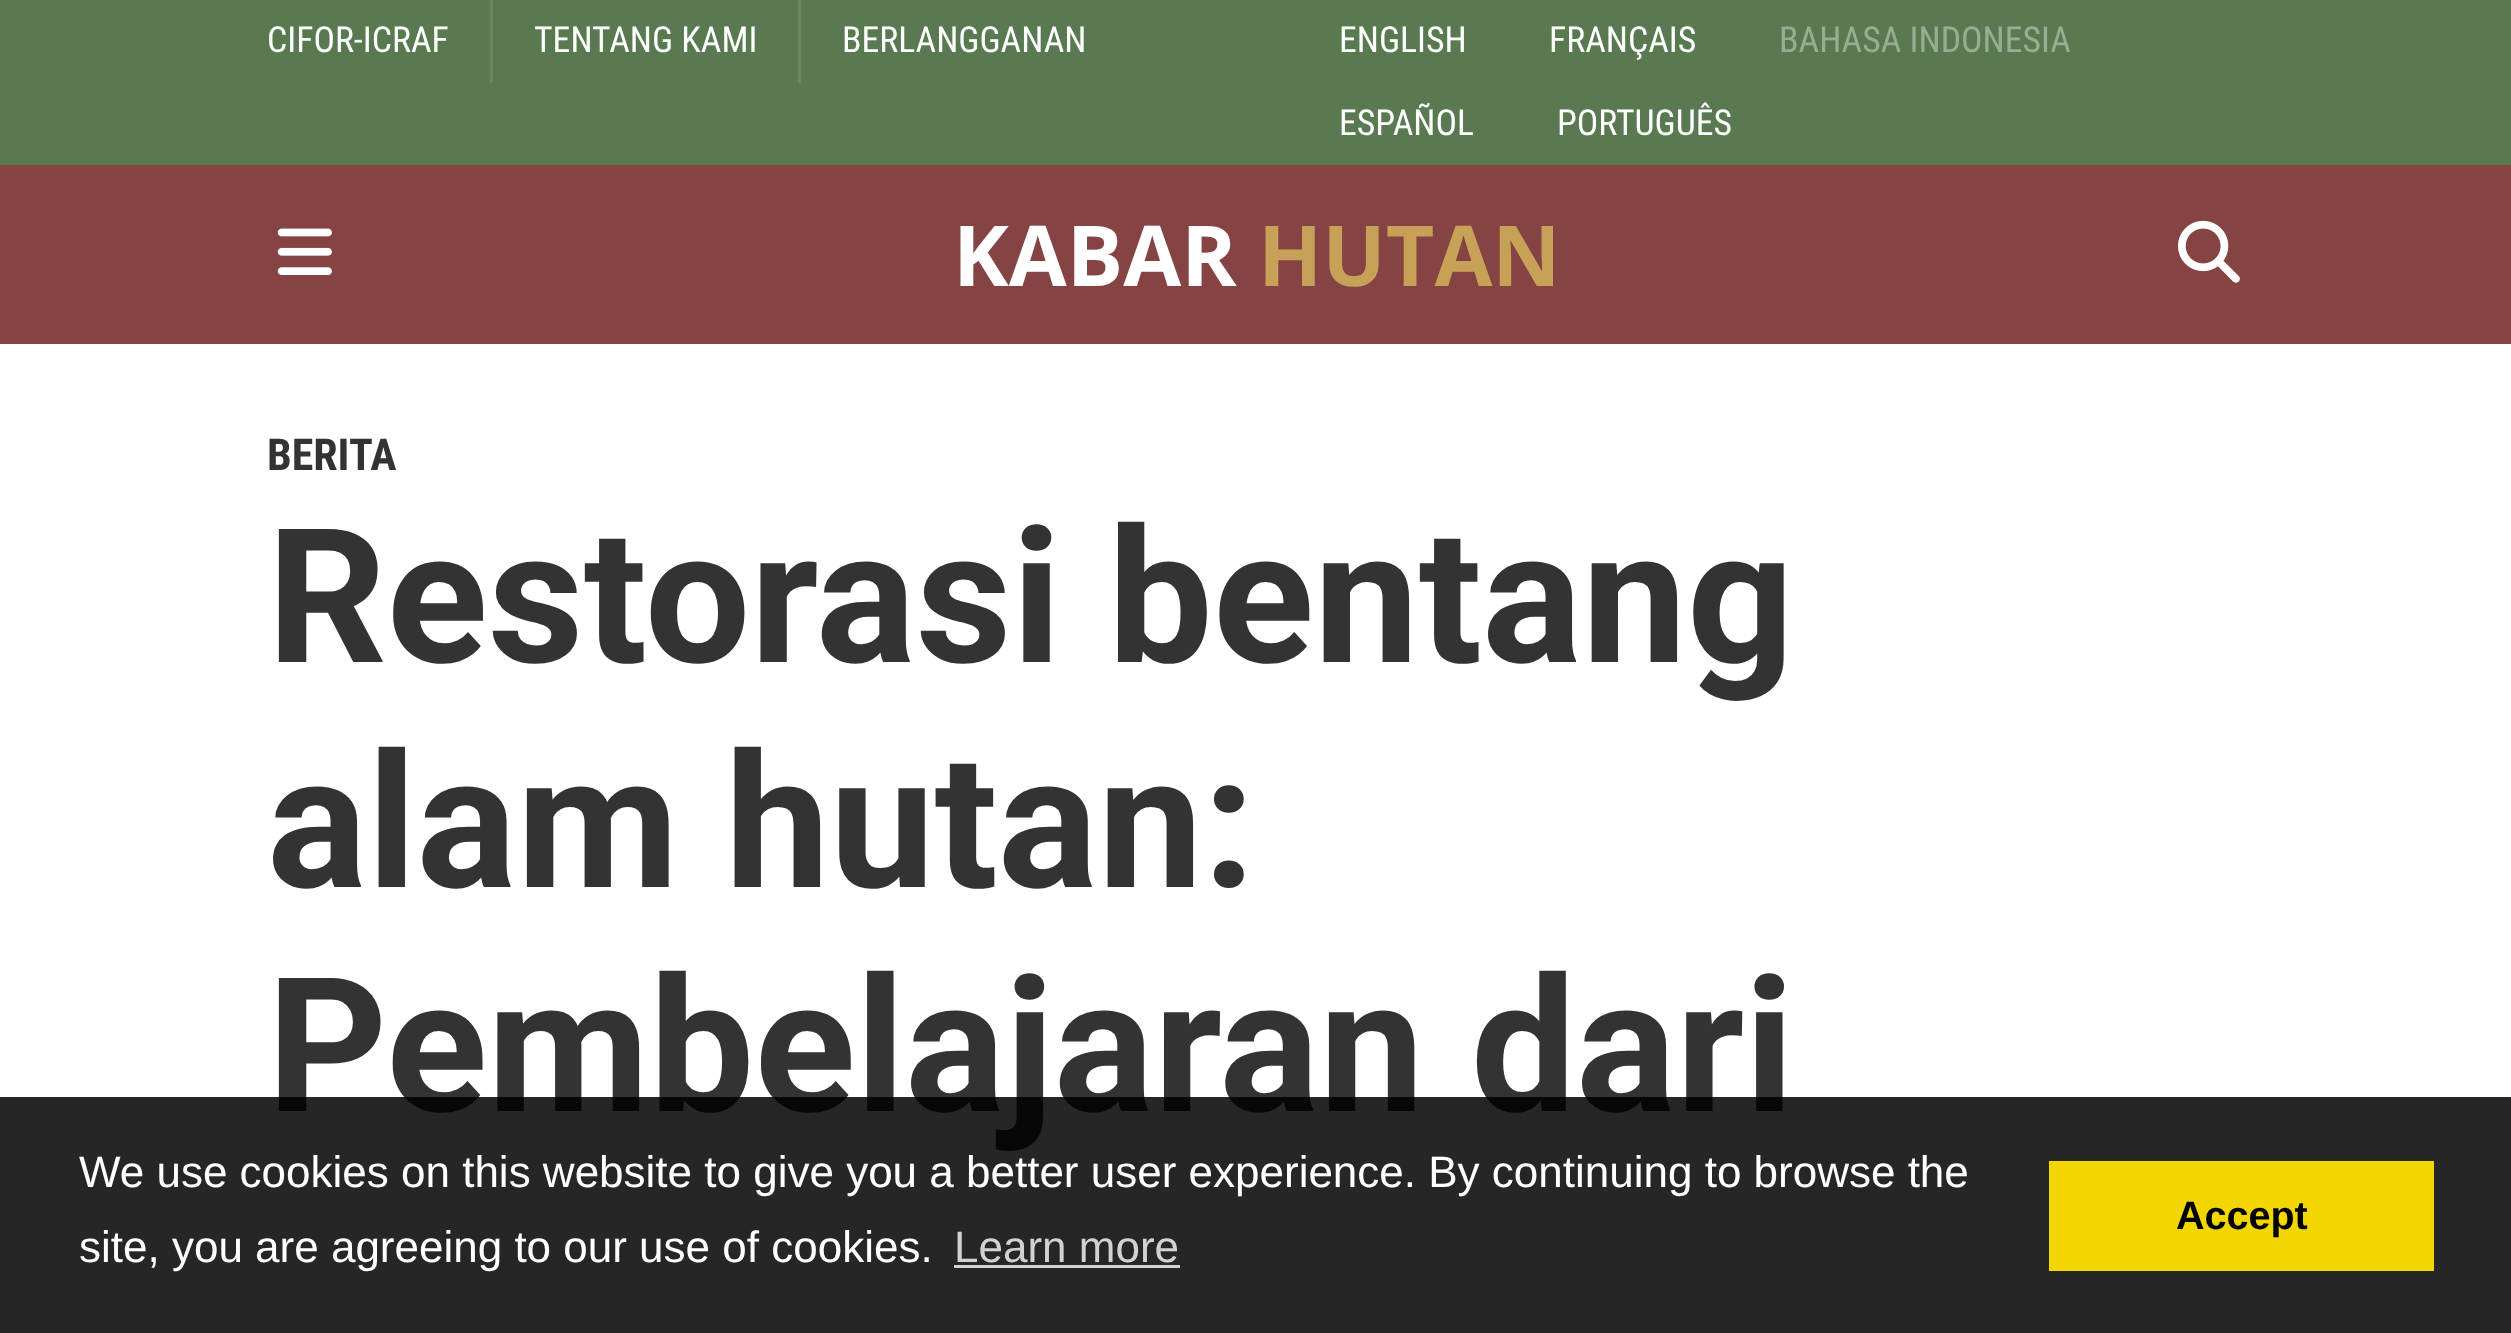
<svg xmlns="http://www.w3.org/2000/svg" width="2511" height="1333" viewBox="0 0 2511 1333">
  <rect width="100%" height="100%" fill="rgb(255,255,255)"/>
  <rect x="0" y="0" width="2511" height="165" fill="rgb(89,122,80)"/>
  <text x="267" y="52" font-family="Roboto Condensed" font-size="35.75" fill="rgb(255,255,255)">CIFOR-ICRAF</text>
  <rect x="490" y="0" width="3" height="83" fill="rgb(106,135,98)"/>
  <text x="534" y="52" font-family="Roboto Condensed" font-size="35.75" fill="rgb(255,255,255)">TENTANG KAMI</text>
  <rect x="798" y="0" width="3" height="83" fill="rgb(106,135,98)"/>
  <g font-family="Roboto Condensed" font-size="35.75" fill="rgb(255,255,255)">
    <text x="842" y="52">BERLANGGANAN</text>
    <text x="1339" y="52">ENGLISH</text>
    <text x="1549" y="52">FRANÇAIS</text>
  </g>
  <text x="1779" y="52" font-family="Roboto Condensed" font-size="35.75" fill="rgb(152,173,147)">BAHASA INDONESIA</text>
  <g font-family="Roboto Condensed" font-size="35.75" fill="rgb(255,255,255)">
    <text x="1339" y="135">ESPAÑOL</text>
    <text x="1557" y="135">PORTUGUÊS</text>
  </g>
  <rect x="0" y="165" width="2511" height="179" fill="rgb(134,67,67)"/>
  <image x="277" y="228" width="55" height="47" href="pic1.png"/>
  <text x="953" y="286" font-family="Open Sans" font-size="84" font-weight="bold" fill="rgb(255,255,255)">KABAR</text>
  <text x="1258" y="286" font-family="Open Sans" font-size="84" font-weight="bold" fill="rgb(199,161,88)">HUTAN</text>
  <image x="2178" y="220" width="62" height="63" href="pic2.png"/>
  <text x="267" y="470" font-family="Roboto Condensed" font-size="44" font-weight="bold" fill="rgb(51,51,51)">BERITA</text>
  <g font-family="Roboto" font-size="187" font-weight="bold" fill="rgb(51,51,51)">
    <text>
      <tspan x="267" y="662">Restorasi bentang</tspan>
      <tspan x="267" y="887">alam hutan:</tspan>
      <tspan x="267" y="1111">Pembelajaran dari</tspan>
    </text>
  </g>
  <rect x="0" y="1097" width="2511" height="236" fill="rgba(0,0,0,0.85)"/>
  <g font-family="Liberation Sans" font-size="44" fill="rgb(255,255,255)">
    <text>
      <tspan x="79" y="1187">We use cookies on this website to give you a better user experience. By continuing to browse the</tspan>
      <tspan x="79" y="1262">site, you are agreeing to our use of cookies.</tspan>
    </text>
  </g>
  <text x="954" y="1262" font-family="Liberation Sans" font-size="44" fill="rgb(210,210,210)">Learn more</text>
  <rect x="954" y="1265" width="226" height="3" fill="rgba(255,255,255,0.8)"/>
  <rect x="2049" y="1161" width="385" height="110" fill="rgb(241,214,0)"/>
  <text x="2176" y="1229" font-family="Liberation Sans" font-size="39.5" font-weight="bold" fill="rgb(0,0,0)">Accept</text>
</svg>
